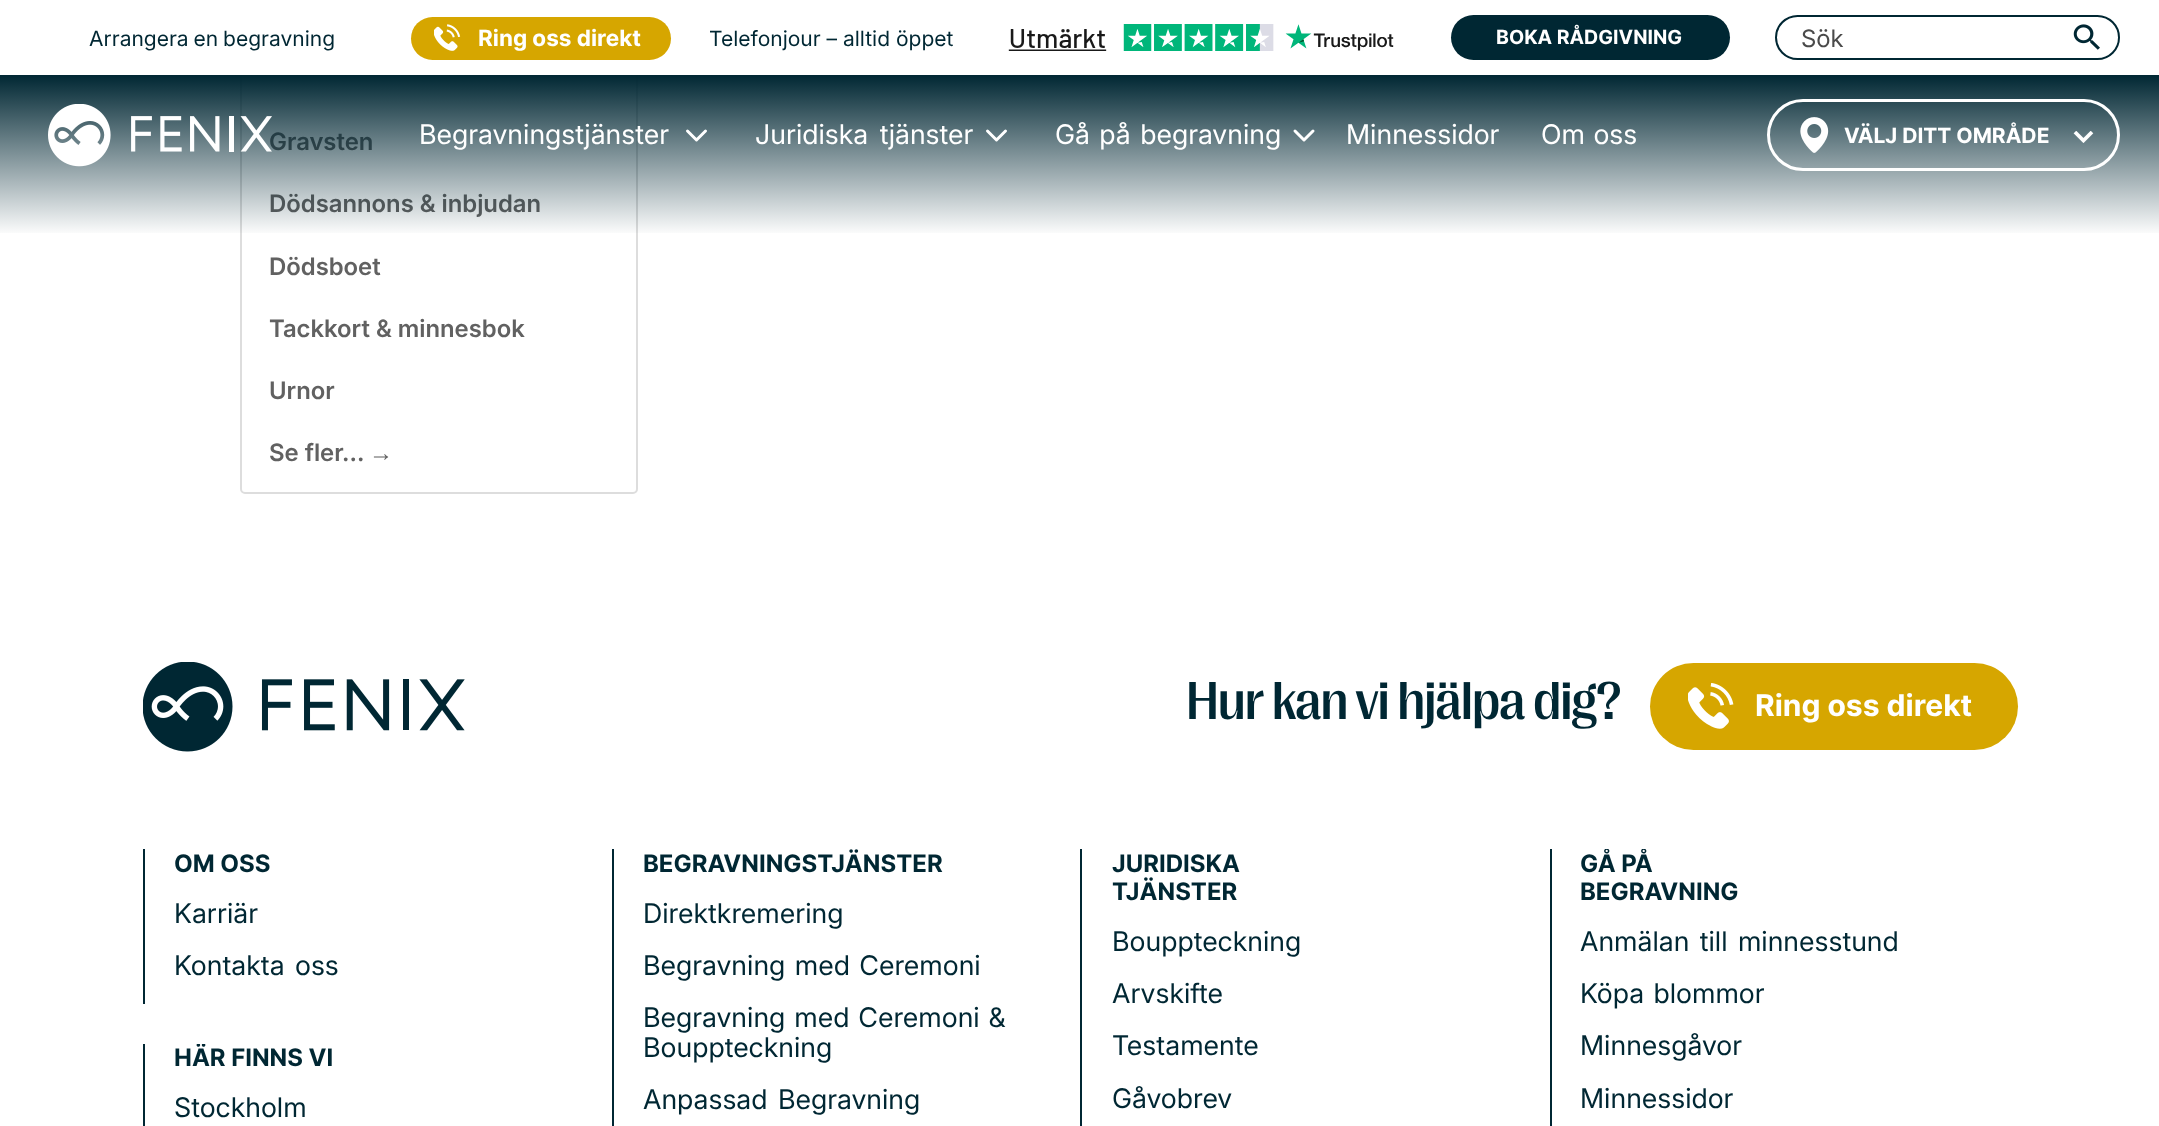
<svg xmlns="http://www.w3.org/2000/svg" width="2159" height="1126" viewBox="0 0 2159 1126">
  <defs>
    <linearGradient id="g1" gradientUnits="userSpaceOnUse" x1="1080" y1="75" x2="1080" y2="236"><stop offset="0" stop-color="rgb(0,39,51)"/><stop offset="1" stop-color="rgb(0,39,51)" stop-opacity="0"/></linearGradient>
    <clipPath id="clip1"><rect x="174" y="1044" width="159" height="29"/></clipPath>
    <clipPath id="clip2"><rect x="1581" y="849" width="158" height="57"/></clipPath>
  </defs>
  <rect width="100%" height="100%" fill="rgb(255,255,255)"/>
  <rect x="241" y="-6" width="396" height="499" rx="4" fill="none" stroke="rgb(221,221,221)" stroke-width="2"/>
  <rect x="240" y="0" width="398" height="75" fill="rgb(255,255,255)"/>
  <text x="89" y="46" word-spacing="-1" font-family="'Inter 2'" font-size="21" fill="rgb(0,39,51)">Arrangera en begravning</text>
  <rect x="411" y="17" width="260" height="43" rx="21.5" fill="rgb(214,166,0)"/>
  <image x="434" y="24" width="27" height="27" href="pic1.png"/>
  <text x="478" y="46" font-family="Inter" font-size="22.5" font-weight="bold" fill="rgb(255,255,255)">Ring oss direkt</text>
  <text x="709" y="46" font-family="'Inter 2'" font-size="21" fill="rgb(0,39,51)">Telefonjour – alltid öppet</text>
  <image x="1008" y="24" width="386" height="27" href="pic2.png"/>
  <rect x="1451" y="15" width="279" height="45" rx="22.5" fill="rgb(0,39,51)"/>
  <text x="1496" y="44" font-family="Inter" font-size="19.5" font-weight="bold" fill="rgb(255,255,255)">BOKA RÅDGIVNING</text>
  <rect x="1776" y="16" width="343" height="43" rx="21.5" fill="none" stroke="rgb(0,39,51)" stroke-width="2"/>
  <text x="1801" y="47" font-family="'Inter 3'" font-size="24" fill="rgb(74,74,74)">Sök</text>
  <image x="2073" y="24" width="27" height="26" href="pic3.png"/>
  <g font-family="Inter" font-size="24" font-weight="600" fill="rgb(97,97,97)">
    <text x="269" y="150">Gravsten</text>
    <text x="269" y="212">Dödsannons &amp; inbjudan</text>
  </g>
  <rect x="0" y="75" width="2159" height="158" fill="url(#g1)"/>
  <image x="48" y="104" width="224" height="63" href="pic4.png"/>
  <text x="419" y="144" font-family="Inter" font-size="27" fill="rgb(255,255,255)">Begravningstjänster</text>
  <path d="M687.5 131L696.5 140L705.5 131" fill="none" stroke="rgb(255,255,255)" stroke-width="3" stroke-linecap="round" stroke-linejoin="round"/>
  <text x="755" y="144" word-spacing="4" font-family="Inter" font-size="27" fill="rgb(255,255,255)">Juridiska tjänster</text>
  <path d="M987.5 131L996.5 140L1005.5 131" fill="none" stroke="rgb(255,255,255)" stroke-width="3" stroke-linecap="round" stroke-linejoin="round"/>
  <text x="1055" y="144" word-spacing="2" font-family="Inter" font-size="27" fill="rgb(255,255,255)">Gå på begravning</text>
  <path d="M1295 131L1304 140L1313 131" fill="none" stroke="rgb(255,255,255)" stroke-width="3" stroke-linecap="round" stroke-linejoin="round"/>
  <g font-family="Inter" font-size="27" fill="rgb(255,255,255)">
    <text x="1346" y="144">Minnessidor</text>
    <text x="1541" y="144" word-spacing="1">Om oss</text>
  </g>
  <rect x="1768.5" y="100.5" width="350" height="69" rx="34.5" fill="none" stroke="rgb(255,255,255)" stroke-width="3"/>
  <image x="1800" y="117" width="29" height="36" href="pic5.png"/>
  <text x="1844" y="143" font-family="Inter" font-size="21" font-weight="bold" fill="rgb(255,255,255)">VÄLJ DITT OMRÅDE</text>
  <image x="2073" y="131" width="21" height="12" href="pic6.png"/>
  <g font-family="Inter" font-size="24" font-weight="600" fill="rgb(97,97,97)">
    <text x="269" y="275">Dödsboet</text>
    <text x="269" y="337">Tackkort &amp; minnesbok</text>
    <text x="269" y="399">Urnor</text>
    <text x="269" y="461">Se fler...</text>
  </g>
  <text x="369" y="461" font-family="Liberation Serif" font-size="24" font-weight="bold" fill="rgb(97,97,97)">→</text>
  <image x="143" y="662" width="322" height="90" href="pic7.png"/>
  <text x="1186" y="719" font-family="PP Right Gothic" font-size="54" font-weight="500" letter-spacing="-1.1" fill="rgb(0,39,51)">Hur kan vi hjälpa dig?</text>
  <rect x="1650" y="663" width="368" height="87" rx="43.5" fill="rgb(214,166,0)"/>
  <image x="1688" y="683" width="46" height="46" href="pic8.png"/>
  <text x="1755" y="716" font-family="Inter" font-size="30" font-weight="bold" fill="rgb(255,255,255)">Ring oss direkt</text>
  <rect x="143" y="849" width="2" height="155" fill="rgb(0,39,51)"/>
  <text x="174" y="872" font-family="Inter" font-size="24" font-weight="bold" fill="rgb(0,39,51)">OM OSS</text>
  <g font-family="Inter" font-size="27" fill="rgb(0,39,51)">
    <text>
      <tspan x="174" y="923">Karriär</tspan>
      <tspan x="174" y="975" word-spacing="3">Kontakta oss</tspan>
    </text>
  </g>
  <rect x="143" y="1044" width="2" height="82" fill="rgb(0,39,51)"/>
  <g clip-path="url(#clip1)">
    <text x="174" y="1066" font-family="Inter" font-size="24" font-weight="bold" fill="rgb(0,39,51)">HÄR FINNS VI</text>
  </g>
  <text x="174" y="1117" font-family="Inter" font-size="27" fill="rgb(0,39,51)">Stockholm</text>
  <rect x="612" y="849" width="2" height="277" fill="rgb(0,39,51)"/>
  <text x="643" y="872" font-family="Inter" font-size="24" font-weight="bold" fill="rgb(0,39,51)">BEGRAVNINGSTJÄNSTER</text>
  <g font-family="Inter" font-size="27" fill="rgb(0,39,51)">
    <text>
      <tspan x="643" y="923">Direktkremering</tspan>
      <tspan x="643" y="975" word-spacing="2">Begravning med Ceremoni</tspan>
      <tspan x="643" y="1027" word-spacing="1.5">Begravning med Ceremoni &amp;</tspan>
      <tspan x="643" y="1057">Bouppteckning</tspan>
      <tspan x="643" y="1109" word-spacing="3">Anpassad Begravning</tspan>
    </text>
  </g>
  <rect x="1080" y="849" width="2" height="277" fill="rgb(0,39,51)"/>
  <g font-family="Inter" font-size="24" font-weight="bold" fill="rgb(0,39,51)">
    <text>
      <tspan x="1112" y="872">JURIDISKA</tspan>
      <tspan x="1112" y="900">TJÄNSTER</tspan>
    </text>
  </g>
  <g font-family="Inter" font-size="27" fill="rgb(0,39,51)">
    <text>
      <tspan x="1112" y="951">Bouppteckning</tspan>
      <tspan x="1112" y="1003">Arvskifte</tspan>
      <tspan x="1112" y="1055">Testamente</tspan>
      <tspan x="1112" y="1108">Gåvobrev</tspan>
    </text>
  </g>
  <rect x="1550" y="849" width="2" height="277" fill="rgb(0,39,51)"/>
  <g clip-path="url(#clip2)">
    <text x="1580" y="872" font-family="Inter" font-size="24" font-weight="bold" fill="rgb(0,39,51)">GÅ PÅ</text>
  </g>
  <text x="1580" y="900" font-family="Inter" font-size="24" font-weight="bold" fill="rgb(0,39,51)">BEGRAVNING</text>
  <g font-family="Inter" font-size="27" fill="rgb(0,39,51)">
    <text>
      <tspan x="1580" y="951" word-spacing="3">Anmälan till minnesstund</tspan>
      <tspan x="1580" y="1003" word-spacing="2">Köpa blommor</tspan>
      <tspan x="1580" y="1055">Minnesgåvor</tspan>
      <tspan x="1580" y="1108">Minnessidor</tspan>
    </text>
  </g>
</svg>
